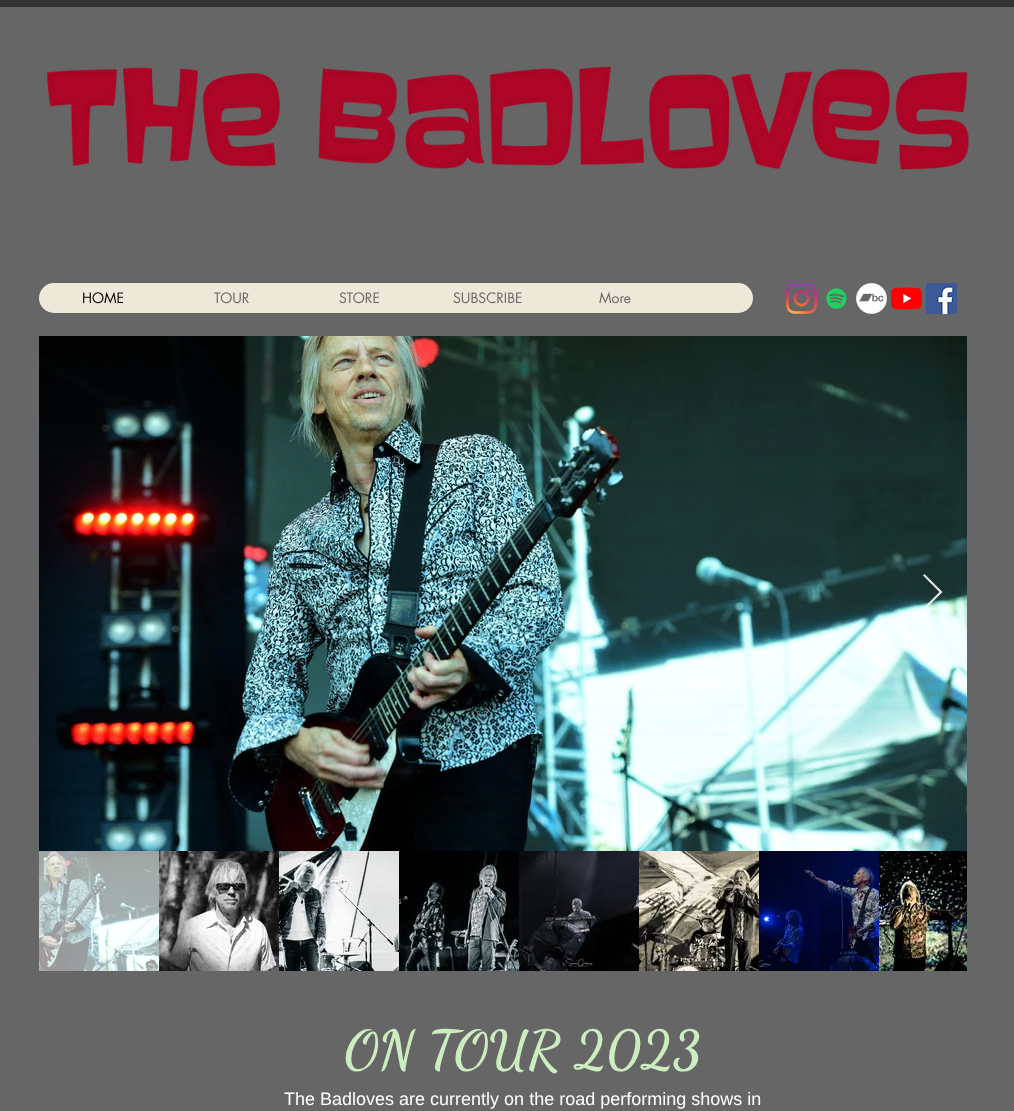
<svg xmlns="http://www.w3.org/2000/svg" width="1014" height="1111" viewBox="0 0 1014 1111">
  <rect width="100%" height="100%" fill="rgb(102,102,102)"/>
  <rect x="0" y="0" width="1014" height="7" fill="rgb(51,51,51)"/>
  <image x="46" y="66" width="923" height="104" href="pic1.png"/>
  <rect x="39" y="283" width="714" height="30" rx="15" fill="rgb(238,232,216)"/>
  <text x="82" y="303" font-family="futura" font-size="14" fill="rgb(0,0,0)">HOME</text>
  <g font-family="futura" font-size="14" fill="rgb(105,105,105)">
    <text x="214" y="303">TOUR</text>
    <text x="339" y="303">STORE</text>
    <text x="453" y="303">SUBSCRIBE</text>
    <text x="599" y="303">More</text>
  </g>
  <image x="786" y="283" width="31" height="31" href="pic2.png"/>
  <image x="826" y="288" width="21" height="21" href="pic3.png"/>
  <image x="856" y="283" width="31" height="31" href="pic4.png"/>
  <image x="891" y="287" width="31" height="23" href="pic5.png"/>
  <image x="926" y="283" width="31" height="31" href="pic6.png"/>
  <image x="39" y="336" width="928" height="515" href="pic7.png"/>
  <path d="M923 575.5L924.5 574L942.5 592L924.5 610L923 608.5L939.5 592Z" fill="rgba(255,255,255,0.9)"/>
  <image x="39" y="851" width="120" height="120" href="pic8.png"/>
  <image x="159" y="851" width="120" height="120" href="pic9.png"/>
  <image x="279" y="851" width="120" height="120" href="pic10.png"/>
  <image x="399" y="851" width="120" height="120" href="pic11.png"/>
  <image x="519" y="851" width="120" height="120" href="pic12.png"/>
  <image x="639" y="851" width="120" height="120" href="pic13.png"/>
  <image x="759" y="851" width="120" height="120" href="pic14.png"/>
  <image x="879" y="851" width="88" height="120" href="pic15.png"/>
  <text x="344" y="1067" font-family="Dancing Script" font-size="53" font-weight="bold" fill="rgb(204,237,192)">ON TOUR 2023</text>
  <text x="284" y="1105" font-family="Liberation Sans" font-size="18" fill="rgb(255,255,255)">The Badloves are currently on the road performing shows in</text>
</svg>
